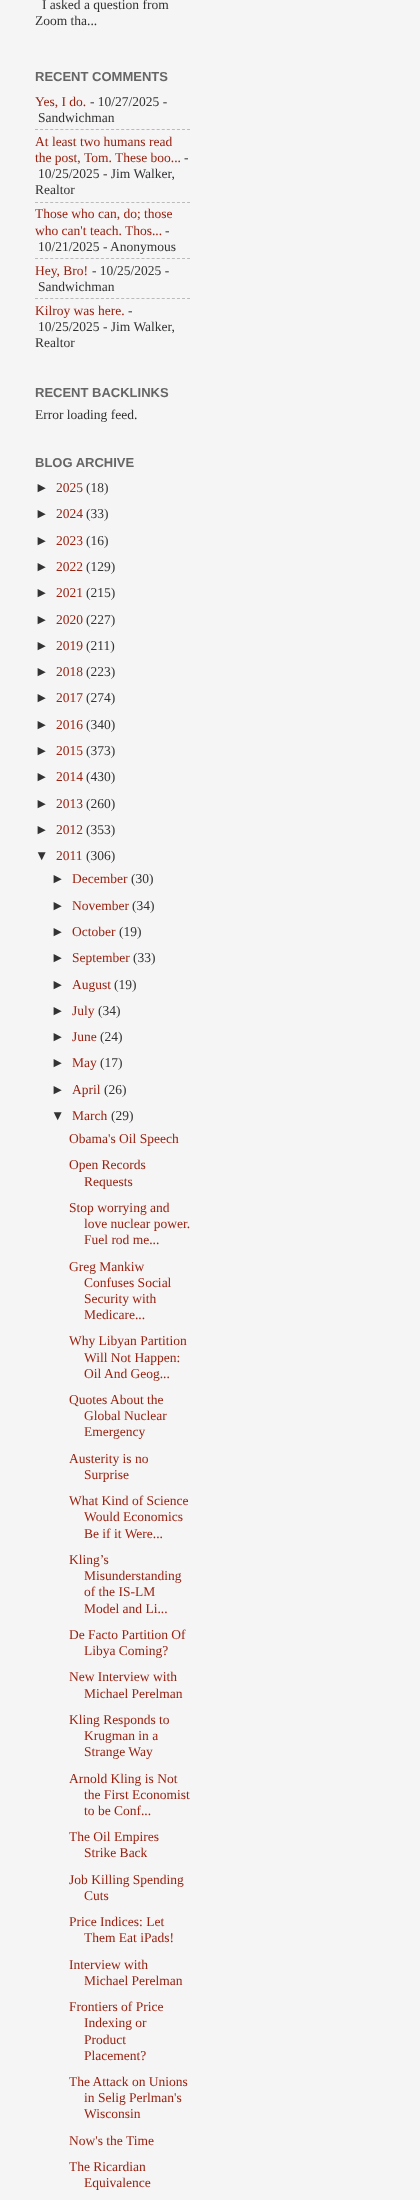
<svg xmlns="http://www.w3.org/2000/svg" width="420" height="2200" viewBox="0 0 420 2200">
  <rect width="100%" height="100%" fill="rgb(245,245,245)"/>
  <g font-family="Liberation Serif" font-size="13.5" fill="rgb(51,51,51)">
    <text x="42" y="9">I asked a question from</text>
    <text x="35" y="25">Zoom tha...</text>
  </g>
  <text x="35" y="81" font-family="Liberation Sans" font-size="13" font-weight="bold" fill="rgb(102,102,102)">RECENT COMMENTS</text>
  <text x="35" y="106" font-family="Liberation Serif" font-size="13.5" fill="rgb(153,34,17)">Yes, I do.</text>
  <g font-family="Liberation Serif" font-size="13.5" fill="rgb(51,51,51)">
    <text x="90" y="106">- 10/27/2025 -</text>
    <text x="38" y="122">Sandwichman</text>
  </g>
  <path d="M35 129.5H190" fill="none" stroke="rgb(187,187,187)" stroke-dasharray="3 2.07"/>
  <g font-family="Liberation Serif" font-size="13.5" fill="rgb(153,34,17)">
    <text>
      <tspan x="35" y="146">At least two humans read</tspan>
      <tspan x="35" y="162">the post, Tom. These boo...</tspan>
    </text>
  </g>
  <g font-family="Liberation Serif" font-size="13.5" fill="rgb(51,51,51)">
    <text x="184" y="162">-</text>
    <text x="38" y="178">10/25/2025 - Jim Walker,</text>
    <text x="35" y="194">Realtor</text>
  </g>
  <path d="M35 202.5H190" fill="none" stroke="rgb(187,187,187)" stroke-dasharray="3 2.07"/>
  <g font-family="Liberation Serif" font-size="13.5" fill="rgb(153,34,17)">
    <text>
      <tspan x="35" y="218">Those who can, do; those</tspan>
      <tspan x="35" y="235">who can't teach. Thos...</tspan>
    </text>
  </g>
  <g font-family="Liberation Serif" font-size="13.5" fill="rgb(51,51,51)">
    <text x="165" y="235">-</text>
    <text x="38" y="251">10/21/2025 - Anonymous</text>
  </g>
  <path d="M35 258.5H190" fill="none" stroke="rgb(187,187,187)" stroke-dasharray="3 2.07"/>
  <text x="35" y="275" font-family="Liberation Serif" font-size="13.5" fill="rgb(153,34,17)">Hey, Bro!</text>
  <g font-family="Liberation Serif" font-size="13.5" fill="rgb(51,51,51)">
    <text x="92" y="275">- 10/25/2025 -</text>
    <text x="38" y="291">Sandwichman</text>
  </g>
  <path d="M35 298.5H190" fill="none" stroke="rgb(187,187,187)" stroke-dasharray="3 2.07"/>
  <text x="35" y="315" font-family="Liberation Serif" font-size="13.5" fill="rgb(153,34,17)">Kilroy was here.</text>
  <g font-family="Liberation Serif" font-size="13.5" fill="rgb(51,51,51)">
    <text x="128" y="315">-</text>
    <text x="38" y="331">10/25/2025 - Jim Walker,</text>
    <text x="35" y="347">Realtor</text>
  </g>
  <text x="35" y="397" font-family="Liberation Sans" font-size="13" font-weight="bold" fill="rgb(102,102,102)">RECENT BACKLINKS</text>
  <text x="35" y="419" font-family="Liberation Serif" font-size="13.5" fill="rgb(51,51,51)">Error loading feed.</text>
  <text x="35" y="467" font-family="Liberation Sans" font-size="13" font-weight="bold" fill="rgb(102,102,102)">BLOG ARCHIVE</text>
  <text x="35" y="492" font-family="Liberation Sans" font-size="13.5" fill="rgb(51,51,51)">►</text>
  <text x="56" y="492" font-family="Liberation Serif" font-size="13.5" fill="rgb(153,34,17)">2025</text>
  <text x="86" y="492" font-family="Liberation Serif" font-size="13.5" fill="rgb(51,51,51)">(18)</text>
  <text x="35" y="518" font-family="Liberation Sans" font-size="13.5" fill="rgb(51,51,51)">►</text>
  <text x="56" y="518" font-family="Liberation Serif" font-size="13.5" fill="rgb(153,34,17)">2024</text>
  <text x="86" y="518" font-family="Liberation Serif" font-size="13.5" fill="rgb(51,51,51)">(33)</text>
  <text x="35" y="545" font-family="Liberation Sans" font-size="13.5" fill="rgb(51,51,51)">►</text>
  <text x="56" y="545" font-family="Liberation Serif" font-size="13.5" fill="rgb(153,34,17)">2023</text>
  <text x="86" y="545" font-family="Liberation Serif" font-size="13.5" fill="rgb(51,51,51)">(16)</text>
  <text x="35" y="571" font-family="Liberation Sans" font-size="13.5" fill="rgb(51,51,51)">►</text>
  <text x="56" y="571" font-family="Liberation Serif" font-size="13.5" fill="rgb(153,34,17)">2022</text>
  <text x="86" y="571" font-family="Liberation Serif" font-size="13.5" fill="rgb(51,51,51)">(129)</text>
  <text x="35" y="597" font-family="Liberation Sans" font-size="13.5" fill="rgb(51,51,51)">►</text>
  <text x="56" y="597" font-family="Liberation Serif" font-size="13.5" fill="rgb(153,34,17)">2021</text>
  <text x="86" y="597" font-family="Liberation Serif" font-size="13.5" fill="rgb(51,51,51)">(215)</text>
  <text x="35" y="624" font-family="Liberation Sans" font-size="13.5" fill="rgb(51,51,51)">►</text>
  <text x="56" y="624" font-family="Liberation Serif" font-size="13.5" fill="rgb(153,34,17)">2020</text>
  <text x="86" y="624" font-family="Liberation Serif" font-size="13.5" fill="rgb(51,51,51)">(227)</text>
  <text x="35" y="650" font-family="Liberation Sans" font-size="13.5" fill="rgb(51,51,51)">►</text>
  <text x="56" y="650" font-family="Liberation Serif" font-size="13.5" fill="rgb(153,34,17)">2019</text>
  <text x="86" y="650" font-family="Liberation Serif" font-size="13.5" fill="rgb(51,51,51)">(211)</text>
  <text x="35" y="676" font-family="Liberation Sans" font-size="13.5" fill="rgb(51,51,51)">►</text>
  <text x="56" y="676" font-family="Liberation Serif" font-size="13.5" fill="rgb(153,34,17)">2018</text>
  <text x="86" y="676" font-family="Liberation Serif" font-size="13.5" fill="rgb(51,51,51)">(223)</text>
  <text x="35" y="702" font-family="Liberation Sans" font-size="13.5" fill="rgb(51,51,51)">►</text>
  <text x="56" y="702" font-family="Liberation Serif" font-size="13.5" fill="rgb(153,34,17)">2017</text>
  <text x="86" y="702" font-family="Liberation Serif" font-size="13.5" fill="rgb(51,51,51)">(274)</text>
  <text x="35" y="729" font-family="Liberation Sans" font-size="13.5" fill="rgb(51,51,51)">►</text>
  <text x="56" y="729" font-family="Liberation Serif" font-size="13.5" fill="rgb(153,34,17)">2016</text>
  <text x="86" y="729" font-family="Liberation Serif" font-size="13.5" fill="rgb(51,51,51)">(340)</text>
  <text x="35" y="755" font-family="Liberation Sans" font-size="13.5" fill="rgb(51,51,51)">►</text>
  <text x="56" y="755" font-family="Liberation Serif" font-size="13.5" fill="rgb(153,34,17)">2015</text>
  <text x="86" y="755" font-family="Liberation Serif" font-size="13.5" fill="rgb(51,51,51)">(373)</text>
  <text x="35" y="781" font-family="Liberation Sans" font-size="13.5" fill="rgb(51,51,51)">►</text>
  <text x="56" y="781" font-family="Liberation Serif" font-size="13.5" fill="rgb(153,34,17)">2014</text>
  <text x="86" y="781" font-family="Liberation Serif" font-size="13.5" fill="rgb(51,51,51)">(430)</text>
  <text x="35" y="808" font-family="Liberation Sans" font-size="13.5" fill="rgb(51,51,51)">►</text>
  <text x="56" y="808" font-family="Liberation Serif" font-size="13.5" fill="rgb(153,34,17)">2013</text>
  <text x="86" y="808" font-family="Liberation Serif" font-size="13.5" fill="rgb(51,51,51)">(260)</text>
  <text x="35" y="834" font-family="Liberation Sans" font-size="13.5" fill="rgb(51,51,51)">►</text>
  <text x="56" y="834" font-family="Liberation Serif" font-size="13.5" fill="rgb(153,34,17)">2012</text>
  <text x="86" y="834" font-family="Liberation Serif" font-size="13.5" fill="rgb(51,51,51)">(353)</text>
  <text x="35" y="860" font-family="Liberation Sans" font-size="13.5" fill="rgb(51,51,51)">▼</text>
  <text x="56" y="860" font-family="Liberation Serif" font-size="13.5" fill="rgb(153,34,17)">2011</text>
  <text x="86" y="860" font-family="Liberation Serif" font-size="13.5" fill="rgb(51,51,51)">(306)</text>
  <text x="51" y="883" font-family="Liberation Sans" font-size="13.5" fill="rgb(51,51,51)">►</text>
  <text x="72" y="883" font-family="Liberation Serif" font-size="13.5" fill="rgb(153,34,17)">December</text>
  <text x="131" y="883" font-family="Liberation Serif" font-size="13.5" fill="rgb(51,51,51)">(30)</text>
  <text x="51" y="910" font-family="Liberation Sans" font-size="13.5" fill="rgb(51,51,51)">►</text>
  <text x="72" y="910" font-family="Liberation Serif" font-size="13.5" fill="rgb(153,34,17)">November</text>
  <text x="132" y="910" font-family="Liberation Serif" font-size="13.5" fill="rgb(51,51,51)">(34)</text>
  <text x="51" y="936" font-family="Liberation Sans" font-size="13.5" fill="rgb(51,51,51)">►</text>
  <text x="72" y="936" font-family="Liberation Serif" font-size="13.5" fill="rgb(153,34,17)">October</text>
  <text x="119" y="936" font-family="Liberation Serif" font-size="13.5" fill="rgb(51,51,51)">(19)</text>
  <text x="51" y="962" font-family="Liberation Sans" font-size="13.5" fill="rgb(51,51,51)">►</text>
  <text x="72" y="962" font-family="Liberation Serif" font-size="13.5" fill="rgb(153,34,17)">September</text>
  <text x="133" y="962" font-family="Liberation Serif" font-size="13.5" fill="rgb(51,51,51)">(33)</text>
  <text x="51" y="989" font-family="Liberation Sans" font-size="13.5" fill="rgb(51,51,51)">►</text>
  <text x="72" y="989" font-family="Liberation Serif" font-size="13.5" fill="rgb(153,34,17)">August</text>
  <text x="114" y="989" font-family="Liberation Serif" font-size="13.5" fill="rgb(51,51,51)">(19)</text>
  <text x="51" y="1015" font-family="Liberation Sans" font-size="13.5" fill="rgb(51,51,51)">►</text>
  <text x="72" y="1015" font-family="Liberation Serif" font-size="13.5" fill="rgb(153,34,17)">July</text>
  <text x="98" y="1015" font-family="Liberation Serif" font-size="13.5" fill="rgb(51,51,51)">(34)</text>
  <text x="51" y="1041" font-family="Liberation Sans" font-size="13.5" fill="rgb(51,51,51)">►</text>
  <text x="72" y="1041" font-family="Liberation Serif" font-size="13.5" fill="rgb(153,34,17)">June</text>
  <text x="100" y="1041" font-family="Liberation Serif" font-size="13.5" fill="rgb(51,51,51)">(24)</text>
  <text x="51" y="1067" font-family="Liberation Sans" font-size="13.5" fill="rgb(51,51,51)">►</text>
  <text x="72" y="1067" font-family="Liberation Serif" font-size="13.5" fill="rgb(153,34,17)">May</text>
  <text x="100" y="1067" font-family="Liberation Serif" font-size="13.5" fill="rgb(51,51,51)">(17)</text>
  <text x="51" y="1094" font-family="Liberation Sans" font-size="13.5" fill="rgb(51,51,51)">►</text>
  <text x="72" y="1094" font-family="Liberation Serif" font-size="13.5" fill="rgb(153,34,17)">April</text>
  <text x="104" y="1094" font-family="Liberation Serif" font-size="13.5" fill="rgb(51,51,51)">(26)</text>
  <text x="51" y="1120" font-family="Liberation Sans" font-size="13.5" fill="rgb(51,51,51)">▼</text>
  <text x="72" y="1120" font-family="Liberation Serif" font-size="13.5" fill="rgb(153,34,17)">March</text>
  <text x="111" y="1120" font-family="Liberation Serif" font-size="13.5" fill="rgb(51,51,51)">(29)</text>
  <g font-family="Liberation Serif" font-size="13.5" fill="rgb(153,34,17)">
    <text>
      <tspan x="69" y="1143">Obama's Oil Speech</tspan>
      <tspan x="69" y="1169">Open Records</tspan>
    </text>
    <text x="84" y="1186">Requests</text>
    <text x="69" y="1212">Stop worrying and</text>
    <text>
      <tspan x="84" y="1228">love nuclear power.</tspan>
      <tspan x="84" y="1244">Fuel rod me...</tspan>
    </text>
    <text x="69" y="1271">Greg Mankiw</text>
    <text>
      <tspan x="84" y="1287">Confuses Social</tspan>
      <tspan x="84" y="1303">Security with</tspan>
      <tspan x="84" y="1319">Medicare...</tspan>
    </text>
    <text x="69" y="1345">Why Libyan Partition</text>
    <text>
      <tspan x="84" y="1362">Will Not Happen:</tspan>
      <tspan x="84" y="1378">Oil And Geog...</tspan>
    </text>
    <text x="69" y="1404">Quotes About the</text>
    <text>
      <tspan x="84" y="1420">Global Nuclear</tspan>
      <tspan x="84" y="1436">Emergency</tspan>
    </text>
    <text x="69" y="1463">Austerity is no</text>
    <text x="84" y="1479">Surprise</text>
    <text x="69" y="1505">What Kind of Science</text>
    <text>
      <tspan x="84" y="1521">Would Economics</tspan>
      <tspan x="84" y="1538">Be if it Were...</tspan>
    </text>
    <text x="69" y="1564">Kling’s</text>
    <text>
      <tspan x="84" y="1580">Misunderstanding</tspan>
      <tspan x="84" y="1596">of the IS-LM</tspan>
      <tspan x="84" y="1613">Model and Li...</tspan>
    </text>
    <text x="69" y="1639">De Facto Partition Of</text>
    <text x="84" y="1655">Libya Coming?</text>
    <text x="69" y="1681">New Interview with</text>
    <text x="84" y="1698">Michael Perelman</text>
    <text x="69" y="1724">Kling Responds to</text>
    <text>
      <tspan x="84" y="1740">Krugman in a</tspan>
      <tspan x="84" y="1756">Strange Way</tspan>
    </text>
    <text x="69" y="1783">Arnold Kling is Not</text>
    <text>
      <tspan x="84" y="1799">the First Economist</tspan>
      <tspan x="84" y="1815">to be Conf...</tspan>
    </text>
    <text x="69" y="1841">The Oil Empires</text>
    <text x="84" y="1857">Strike Back</text>
    <text x="69" y="1884">Job Killing Spending</text>
    <text x="84" y="1900">Cuts</text>
    <text x="69" y="1926">Price Indices: Let</text>
    <text x="84" y="1942">Them Eat iPads!</text>
    <text x="69" y="1969">Interview with</text>
    <text x="84" y="1985">Michael Perelman</text>
    <text x="69" y="2011">Frontiers of Price</text>
    <text>
      <tspan x="84" y="2027">Indexing or</tspan>
      <tspan x="84" y="2044">Product</tspan>
      <tspan x="84" y="2060">Placement?</tspan>
    </text>
    <text x="69" y="2086">The Attack on Unions</text>
    <text>
      <tspan x="84" y="2102">in Selig Perlman's</tspan>
      <tspan x="84" y="2118">Wisconsin</tspan>
    </text>
    <text>
      <tspan x="69" y="2145">Now's the Time</tspan>
      <tspan x="69" y="2171">The Ricardian</tspan>
    </text>
    <text x="84" y="2187">Equivalence</text>
  </g>
</svg>
